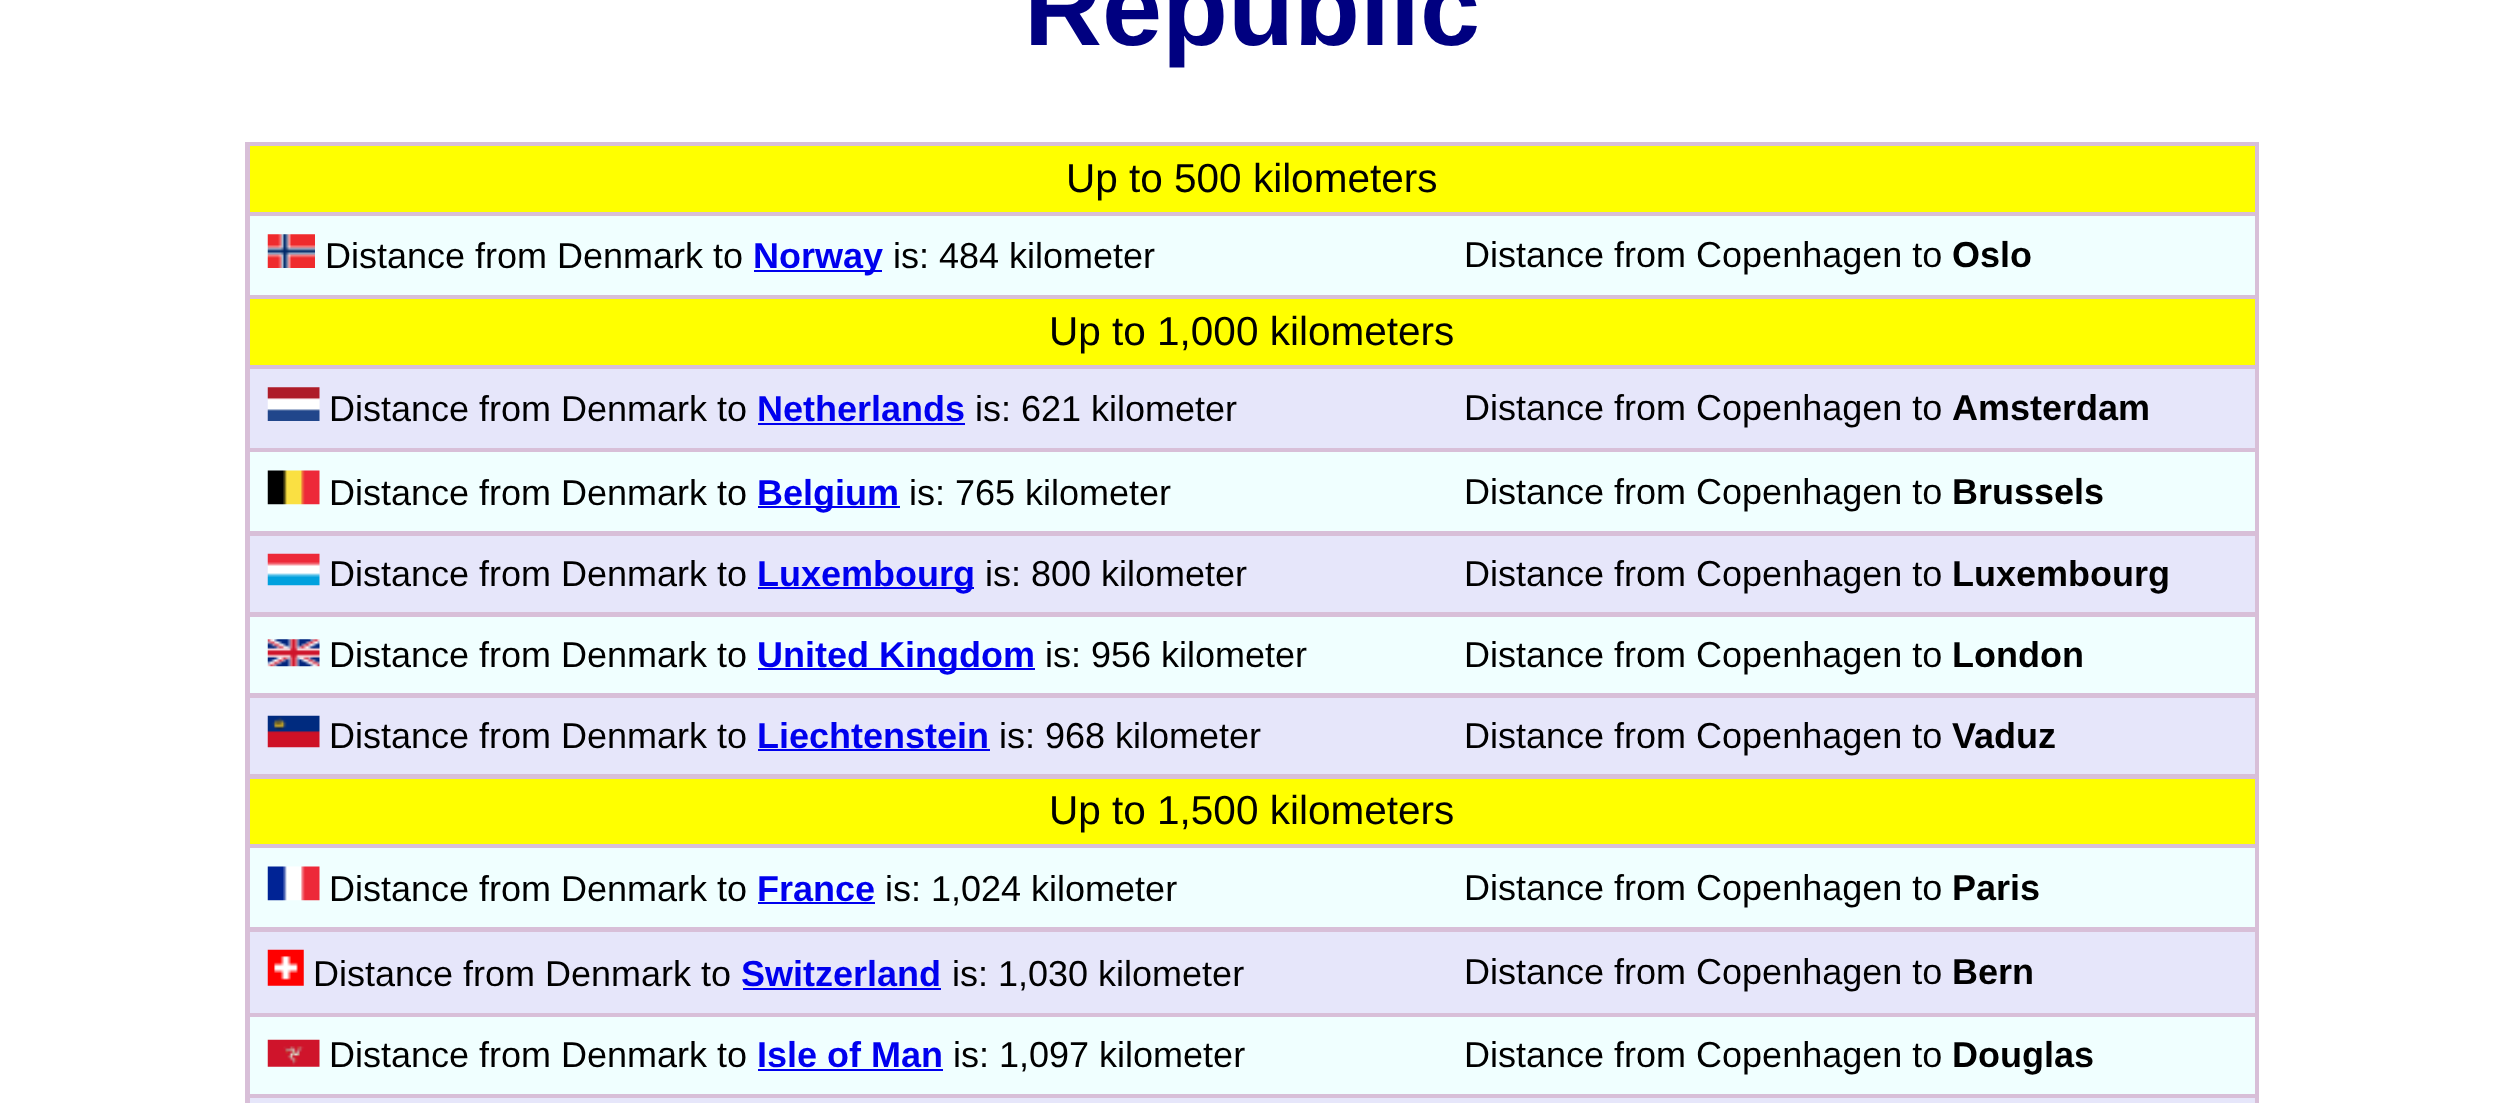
<svg xmlns="http://www.w3.org/2000/svg" width="2503" height="1103" viewBox="0 0 2503 1103">
  <rect width="100%" height="100%" fill="rgb(255,255,255)"/>
  <text x="1024" y="45" font-family="Liberation Sans" font-size="108" font-weight="bold" fill="rgb(0,0,128)">Republic</text>
  <rect x="245" y="142" width="2014" height="961" fill="rgb(216,191,216)"/>
  <rect x="250" y="146" width="2005" height="66" fill="rgb(255,255,0)"/>
  <text x="1066" y="192" font-family="Liberation Sans" font-size="40.5" fill="rgb(0,0,0)">Up to 500 kilometers</text>
  <rect x="250" y="216" width="2005" height="79" fill="rgb(240,255,255)"/>
  <image x="267" y="234" width="48" height="34" href="pic1.png"/>
  <text x="325" y="268" font-family="Liberation Sans" font-size="36" fill="rgb(0,0,0)">Distance from Denmark to</text>
  <rect x="754" y="270" width="128" height="2" fill="rgb(0,0,238)"/>
  <text x="753" y="268" font-family="Liberation Sans" font-size="36" font-weight="bold" fill="rgb(0,0,238)">Norway</text>
  <g font-family="Liberation Sans" font-size="36" fill="rgb(0,0,0)">
    <text x="893" y="268">is: 484 kilometer</text>
    <text x="1464" y="267">Distance from Copenhagen to</text>
  </g>
  <text x="1952" y="267" font-family="Liberation Sans" font-size="36" font-weight="bold" fill="rgb(0,0,0)">Oslo</text>
  <rect x="250" y="299" width="2005" height="66" fill="rgb(255,255,0)"/>
  <text x="1049" y="345" font-family="Liberation Sans" font-size="40.5" fill="rgb(0,0,0)">Up to 1,000 kilometers</text>
  <rect x="250" y="369" width="2005" height="79" fill="rgb(230,230,250)"/>
  <image x="267" y="387" width="53" height="34" href="pic2.png"/>
  <text x="329" y="421" font-family="Liberation Sans" font-size="36" fill="rgb(0,0,0)">Distance from Denmark to</text>
  <text x="757" y="421" font-family="Liberation Sans" font-size="36" font-weight="bold" fill="rgb(0,0,238)">Netherlands</text>
  <rect x="758" y="423" width="207" height="2" fill="rgb(0,0,238)"/>
  <g font-family="Liberation Sans" font-size="36" fill="rgb(0,0,0)">
    <text x="975" y="421">is: 621 kilometer</text>
    <text x="1464" y="420">Distance from Copenhagen to</text>
  </g>
  <text x="1952" y="420" font-family="Liberation Sans" font-size="36" font-weight="bold" fill="rgb(0,0,0)">Amsterdam</text>
  <rect x="250" y="452" width="2005" height="79" fill="rgb(240,255,255)"/>
  <image x="267" y="470" width="53" height="35" href="pic3.png"/>
  <text x="329" y="505" font-family="Liberation Sans" font-size="36" fill="rgb(0,0,0)">Distance from Denmark to</text>
  <rect x="758" y="506" width="142" height="2" fill="rgb(0,0,238)"/>
  <text x="757" y="505" font-family="Liberation Sans" font-size="36" font-weight="bold" fill="rgb(0,0,238)">Belgium</text>
  <g font-family="Liberation Sans" font-size="36" fill="rgb(0,0,0)">
    <text x="909" y="505">is: 765 kilometer</text>
    <text x="1464" y="504">Distance from Copenhagen to</text>
  </g>
  <text x="1952" y="504" font-family="Liberation Sans" font-size="36" font-weight="bold" fill="rgb(0,0,0)">Brussels</text>
  <rect x="250" y="536" width="2005" height="76" fill="rgb(230,230,250)"/>
  <image x="267" y="553" width="53" height="33" href="pic4.png"/>
  <text x="329" y="586" font-family="Liberation Sans" font-size="36" fill="rgb(0,0,0)">Distance from Denmark to</text>
  <rect x="758" y="587" width="216" height="2" fill="rgb(0,0,238)"/>
  <text x="757" y="586" font-family="Liberation Sans" font-size="36" font-weight="bold" fill="rgb(0,0,238)">Luxembourg</text>
  <g font-family="Liberation Sans" font-size="36" fill="rgb(0,0,0)">
    <text x="985" y="586">is: 800 kilometer</text>
    <text x="1464" y="586">Distance from Copenhagen to</text>
  </g>
  <text x="1952" y="586" font-family="Liberation Sans" font-size="36" font-weight="bold" fill="rgb(0,0,0)">Luxembourg</text>
  <rect x="250" y="617" width="2005" height="76" fill="rgb(240,255,255)"/>
  <image x="267" y="639" width="53" height="28" href="pic5.png"/>
  <text x="329" y="667" font-family="Liberation Sans" font-size="36" fill="rgb(0,0,0)">Distance from Denmark to</text>
  <rect x="758" y="668" width="277" height="2" fill="rgb(0,0,238)"/>
  <text x="757" y="667" font-family="Liberation Sans" font-size="36" font-weight="bold" fill="rgb(0,0,238)">United Kingdom</text>
  <g font-family="Liberation Sans" font-size="36" fill="rgb(0,0,0)">
    <text x="1045" y="667">is: 956 kilometer</text>
    <text x="1464" y="667">Distance from Copenhagen to</text>
  </g>
  <text x="1952" y="667" font-family="Liberation Sans" font-size="36" font-weight="bold" fill="rgb(0,0,0)">London</text>
  <rect x="250" y="698" width="2005" height="76" fill="rgb(230,230,250)"/>
  <image x="267" y="715" width="53" height="33" href="pic6.png"/>
  <text x="329" y="748" font-family="Liberation Sans" font-size="36" fill="rgb(0,0,0)">Distance from Denmark to</text>
  <text x="757" y="748" font-family="Liberation Sans" font-size="36" font-weight="bold" fill="rgb(0,0,238)">Liechtenstein</text>
  <rect x="758" y="749" width="232" height="2" fill="rgb(0,0,238)"/>
  <g font-family="Liberation Sans" font-size="36" fill="rgb(0,0,0)">
    <text x="999" y="748">is: 968 kilometer</text>
    <text x="1464" y="748">Distance from Copenhagen to</text>
  </g>
  <text x="1952" y="748" font-family="Liberation Sans" font-size="36" font-weight="bold" fill="rgb(0,0,0)">Vaduz</text>
  <rect x="250" y="779" width="2005" height="65" fill="rgb(255,255,0)"/>
  <text x="1049" y="824" font-family="Liberation Sans" font-size="40.5" fill="rgb(0,0,0)">Up to 1,500 kilometers</text>
  <rect x="250" y="848" width="2005" height="79" fill="rgb(240,255,255)"/>
  <image x="267" y="866" width="53" height="35" href="pic7.png"/>
  <text x="329" y="901" font-family="Liberation Sans" font-size="36" fill="rgb(0,0,0)">Distance from Denmark to</text>
  <text x="757" y="901" font-family="Liberation Sans" font-size="36" font-weight="bold" fill="rgb(0,0,238)">France</text>
  <rect x="758" y="902" width="117" height="2" fill="rgb(0,0,238)"/>
  <g font-family="Liberation Sans" font-size="36" fill="rgb(0,0,0)">
    <text x="885" y="901">is: 1,024 kilometer</text>
    <text x="1464" y="900">Distance from Copenhagen to</text>
  </g>
  <text x="1952" y="900" font-family="Liberation Sans" font-size="36" font-weight="bold" fill="rgb(0,0,0)">Paris</text>
  <rect x="250" y="932" width="2005" height="81" fill="rgb(230,230,250)"/>
  <image x="267" y="949" width="37" height="37" href="pic8.png"/>
  <text x="313" y="986" font-family="Liberation Sans" font-size="36" fill="rgb(0,0,0)">Distance from Denmark to</text>
  <text x="741" y="986" font-family="Liberation Sans" font-size="36" font-weight="bold" fill="rgb(0,0,238)">Switzerland</text>
  <rect x="743" y="988" width="198" height="2" fill="rgb(0,0,238)"/>
  <g font-family="Liberation Sans" font-size="36" fill="rgb(0,0,0)">
    <text x="952" y="986">is: 1,030 kilometer</text>
    <text x="1464" y="984">Distance from Copenhagen to</text>
  </g>
  <text x="1952" y="984" font-family="Liberation Sans" font-size="36" font-weight="bold" fill="rgb(0,0,0)">Bern</text>
  <rect x="250" y="1017" width="2005" height="77" fill="rgb(240,255,255)"/>
  <image x="267" y="1039" width="53" height="28" href="pic9.png"/>
  <text x="329" y="1067" font-family="Liberation Sans" font-size="36" fill="rgb(0,0,0)">Distance from Denmark to</text>
  <text x="757" y="1067" font-family="Liberation Sans" font-size="36" font-weight="bold" fill="rgb(0,0,238)">Isle of Man</text>
  <rect x="758" y="1069" width="185" height="2" fill="rgb(0,0,238)"/>
  <g font-family="Liberation Sans" font-size="36" fill="rgb(0,0,0)">
    <text x="953" y="1067">is: 1,097 kilometer</text>
    <text x="1464" y="1067">Distance from Copenhagen to</text>
  </g>
  <text x="1952" y="1067" font-family="Liberation Sans" font-size="36" font-weight="bold" fill="rgb(0,0,0)">Douglas</text>
  <rect x="250" y="1098" width="2005" height="5" fill="rgb(230,230,250)"/>
</svg>
